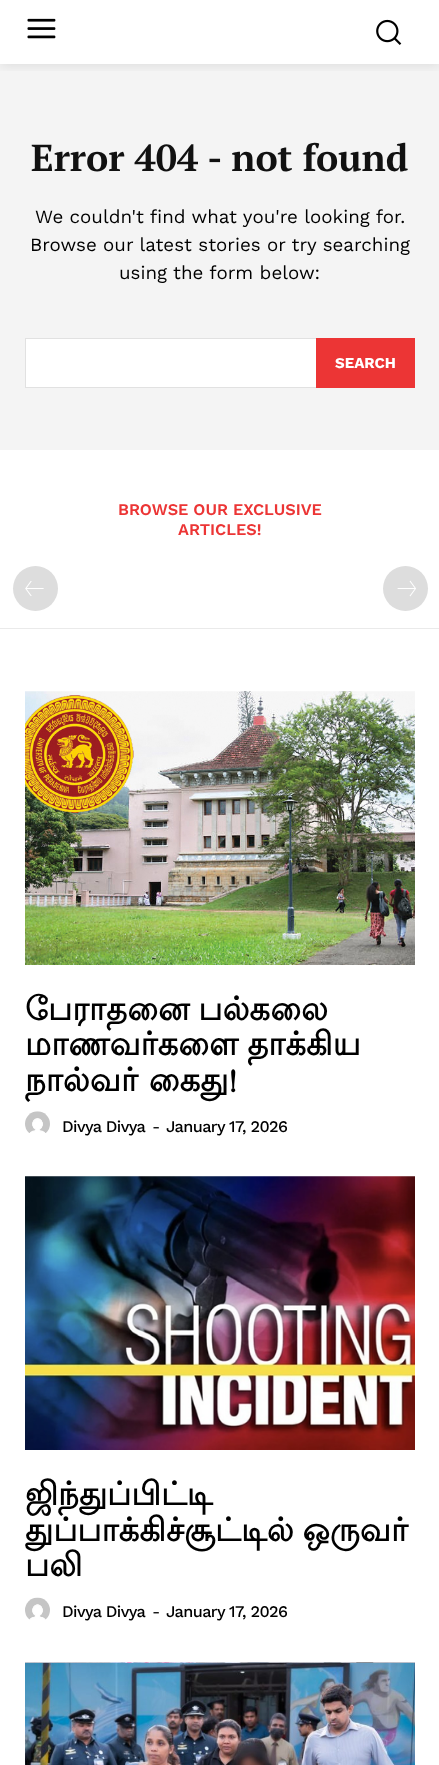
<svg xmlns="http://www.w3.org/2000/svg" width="439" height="1765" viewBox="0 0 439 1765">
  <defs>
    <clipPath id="clip1"><rect x="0" y="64" width="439" height="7"/></clipPath>
  </defs>
  <rect width="100%" height="100%" fill="rgb(255,255,255)"/>
  <image x="27" y="18" width="29" height="21" href="pic1.png"/>
  <image x="376" y="19" width="26" height="26" href="pic2.png"/>
  <rect x="0" y="64" width="439" height="386" fill="rgb(244,244,244)"/>
  <g clip-path="url(#clip1)">
    <rect x="0" y="3" width="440" height="63" fill="rgba(0,0,0,0.09)" filter="blur(6px)"/>
  </g>
  <text x="31" y="171" font-family="PT Serif" font-size="37.5" font-weight="bold" fill="rgb(17,17,17)">Error 404 - not found</text>
  <g font-family="Work Sans" font-size="18.75" fill="rgb(0,0,0)">
    <text x="35" y="223">We couldn't find what you're looking for.</text>
    <text x="30" y="251">Browse our latest stories or try searching</text>
    <text x="119" y="279">using the form below:</text>
  </g>
  <rect x="26" y="339" width="290" height="48" fill="rgb(255,255,255)"/>
  <rect x="25.5" y="338.5" width="389" height="49" fill="none" stroke="rgb(225,225,225)"/>
  <rect x="316" y="338" width="99" height="50" fill="rgb(236,53,53)"/>
  <text x="335" y="368" font-family="Work Sans" font-size="15" font-weight="bold" fill="rgb(255,255,255)">SEARCH</text>
  <g font-family="Work Sans" font-size="16.25" font-weight="600" fill="rgb(236,53,53)">
    <text x="118" y="515">BROWSE OUR EXCLUSIVE</text>
    <text x="178" y="535">ARTICLES!</text>
  </g>
  <circle cx="35.5" cy="588.5" r="22.5" fill="rgb(221,221,221)"/>
  <image x="25" y="581" width="19" height="15" href="pic3.png"/>
  <circle cx="405.5" cy="588.5" r="22.5" fill="rgb(221,221,221)"/>
  <image x="397" y="580" width="19" height="17" href="pic4.png"/>
  <rect x="0" y="628" width="439" height="1" fill="rgb(234,234,234)"/>
  <image x="25" y="691" width="390" height="274" href="pic5.png"/>
  <g font-family="Lohit Tamil" font-size="32.5" font-weight="bold" fill="rgb(0,0,0)">
    <text>
      <tspan x="25" y="1020" word-spacing="-1">பேராதனை பல்கலை</tspan>
      <tspan x="25" y="1055" word-spacing="-1">மாணவர்களை தாக்கிய</tspan>
      <tspan x="25" y="1091" word-spacing="1">நால்வர் கைது!</tspan>
    </text>
  </g>
  <image x="25" y="1111" width="25" height="22" href="pic6.png"/>
  <text x="62" y="1132" font-family="Work Sans" font-size="16.25" font-weight="500" letter-spacing="-0.6" fill="rgb(0,0,0)">Divya Divya</text>
  <text x="152" y="1132" font-family="Work Sans" font-size="16.25" letter-spacing="-0.6" fill="rgb(0,0,0)">-</text>
  <text x="166" y="1132" font-family="Work Sans" font-size="16.25" font-weight="500" letter-spacing="-0.6" fill="rgb(0,0,0)">January 17, 2026</text>
  <image x="25" y="1176" width="390" height="274" href="pic7.png"/>
  <g font-family="Lohit Tamil" font-size="32.5" font-weight="bold" fill="rgb(0,0,0)">
    <text>
      <tspan x="25" y="1505">ஜிந்துப்பிட்டி</tspan>
      <tspan x="25" y="1541" word-spacing="-1">துப்பாக்கிச்சூட்டில் ஒருவர்</tspan>
      <tspan x="25" y="1576">பலி</tspan>
    </text>
  </g>
  <image x="25" y="1597" width="25" height="23" href="pic8.png"/>
  <text x="62" y="1617" font-family="Work Sans" font-size="16.25" font-weight="500" letter-spacing="-0.6" fill="rgb(0,0,0)">Divya Divya</text>
  <text x="152" y="1617" font-family="Work Sans" font-size="16.25" letter-spacing="-0.6" fill="rgb(0,0,0)">-</text>
  <text x="166" y="1617" font-family="Work Sans" font-size="16.25" font-weight="500" letter-spacing="-0.6" fill="rgb(0,0,0)">January 17, 2026</text>
  <image x="25" y="1662" width="390" height="103" href="pic9.png"/>
</svg>
